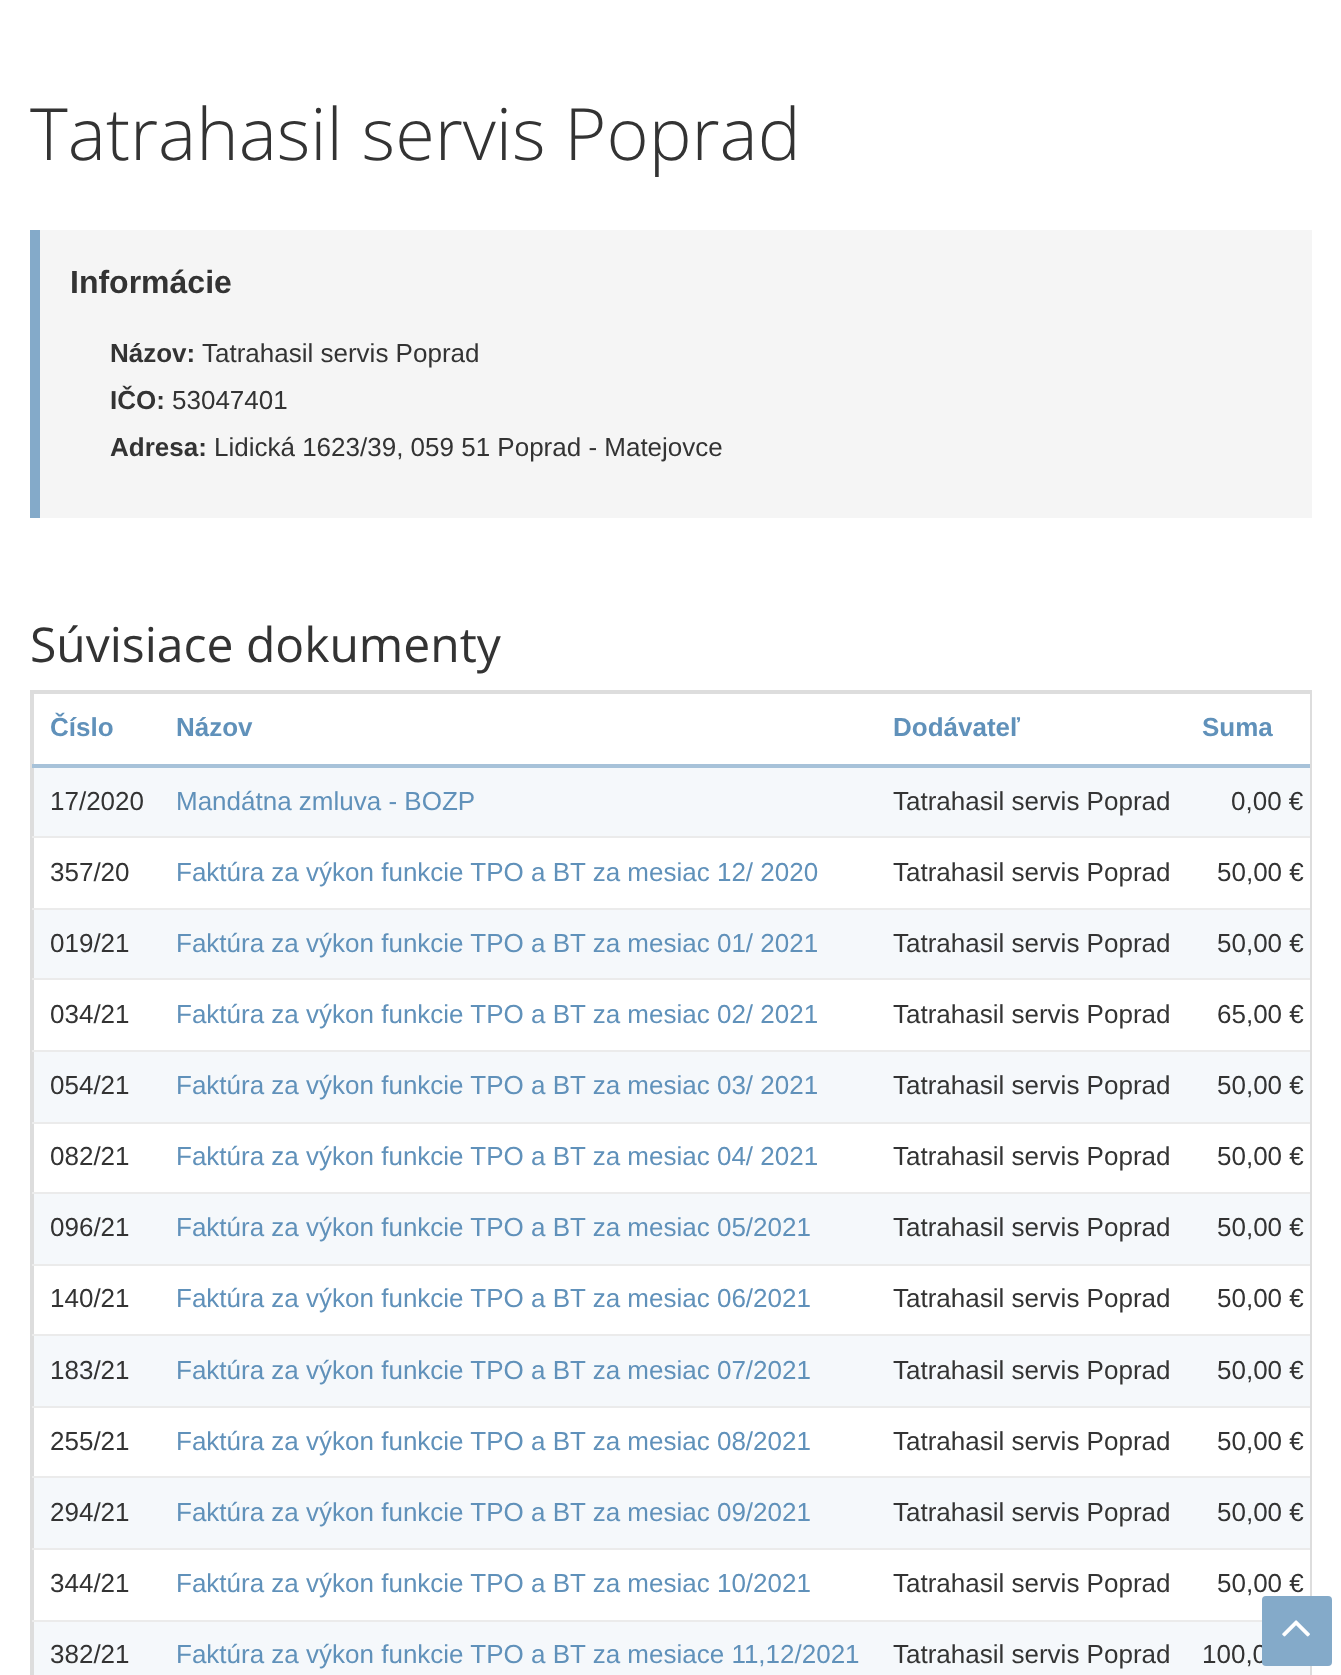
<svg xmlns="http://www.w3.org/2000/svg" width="1341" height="1675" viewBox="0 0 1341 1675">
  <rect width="100%" height="100%" fill="rgb(255,255,255)"/>
  <text x="30" y="160" font-family="Open Sans" font-size="72" font-weight="300" fill="rgb(51,51,51)">Tatrahasil servis Poprad</text>
  <rect x="40" y="230" width="1272" height="288" fill="rgb(245,245,245)"/>
  <rect x="30" y="230" width="10" height="288" fill="rgb(132,170,201)"/>
  <text x="70" y="293" font-family="Liberation Sans" font-size="32" font-weight="bold" fill="rgb(51,51,51)">Informácie</text>
  <text x="110" y="362" font-family="Liberation Sans" font-size="26" font-weight="bold" fill="rgb(51,51,51)">Názov:</text>
  <text x="202" y="362" font-family="Liberation Sans" font-size="26" fill="rgb(51,51,51)">Tatrahasil servis Poprad</text>
  <text x="110" y="409" font-family="Liberation Sans" font-size="26" font-weight="bold" fill="rgb(51,51,51)">IČO:</text>
  <text x="172" y="409" font-family="Liberation Sans" font-size="26" fill="rgb(51,51,51)">53047401</text>
  <text x="110" y="456" font-family="Liberation Sans" font-size="26" font-weight="bold" fill="rgb(51,51,51)">Adresa:</text>
  <text x="214" y="456" font-family="Liberation Sans" font-size="26" fill="rgb(51,51,51)">Lidická 1623/39, 059 51 Poprad - Matejovce</text>
  <text x="30" y="662" font-family="Open Sans" font-size="48" fill="rgb(51,51,51)">Súvisiace dokumenty</text>
  <rect x="31" y="691" width="1280" height="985" fill="none" stroke="rgb(221,221,221)" stroke-width="2"/>
  <rect x="32" y="692" width="1278" height="2" fill="rgb(221,221,221)"/>
  <rect x="32" y="692" width="2" height="983" fill="rgb(221,221,221)"/>
  <g font-family="Liberation Sans" font-size="26" font-weight="bold" fill="rgb(96,145,186)">
    <text x="50" y="736">Číslo</text>
    <text x="176" y="736">Názov</text>
    <text x="893" y="736">Dodávateľ</text>
  </g>
  <rect x="32" y="764" width="1278" height="4" fill="rgb(167,194,217)"/>
  <text x="1202" y="736" font-family="Liberation Sans" font-size="26" font-weight="bold" fill="rgb(96,145,186)">Suma</text>
  <rect x="34" y="768" width="1276" height="68" fill="rgb(245,248,251)"/>
  <text x="50" y="810" font-family="Liberation Sans" font-size="26" fill="rgb(51,51,51)">17/2020</text>
  <text x="176" y="810" font-family="Liberation Sans" font-size="26" fill="rgb(96,145,186)">Mandátna zmluva - BOZP</text>
  <g font-family="Liberation Sans" font-size="26" fill="rgb(51,51,51)">
    <text x="893" y="810">Tatrahasil servis Poprad</text>
    <text x="1231" y="810">0,00 €</text>
    <text x="50" y="881">357/20</text>
  </g>
  <text x="176" y="881" font-family="Liberation Sans" font-size="26" fill="rgb(96,145,186)">Faktúra za výkon funkcie TPO a BT za mesiac 12/ 2020</text>
  <text x="893" y="881" font-family="Liberation Sans" font-size="26" fill="rgb(51,51,51)">Tatrahasil servis Poprad</text>
  <rect x="32" y="836" width="1278" height="2" fill="rgb(235,235,235)"/>
  <text x="1217" y="881" font-family="Liberation Sans" font-size="26" fill="rgb(51,51,51)">50,00 €</text>
  <rect x="34" y="910" width="1276" height="68" fill="rgb(245,248,251)"/>
  <text x="50" y="952" font-family="Liberation Sans" font-size="26" fill="rgb(51,51,51)">019/21</text>
  <text x="176" y="952" font-family="Liberation Sans" font-size="26" fill="rgb(96,145,186)">Faktúra za výkon funkcie TPO a BT za mesiac 01/ 2021</text>
  <text x="893" y="952" font-family="Liberation Sans" font-size="26" fill="rgb(51,51,51)">Tatrahasil servis Poprad</text>
  <rect x="32" y="908" width="1278" height="2" fill="rgb(235,235,235)"/>
  <g font-family="Liberation Sans" font-size="26" fill="rgb(51,51,51)">
    <text x="1217" y="952">50,00 €</text>
    <text x="50" y="1023">034/21</text>
  </g>
  <text x="176" y="1023" font-family="Liberation Sans" font-size="26" fill="rgb(96,145,186)">Faktúra za výkon funkcie TPO a BT za mesiac 02/ 2021</text>
  <text x="893" y="1023" font-family="Liberation Sans" font-size="26" fill="rgb(51,51,51)">Tatrahasil servis Poprad</text>
  <rect x="32" y="978" width="1278" height="2" fill="rgb(235,235,235)"/>
  <text x="1217" y="1023" font-family="Liberation Sans" font-size="26" fill="rgb(51,51,51)">65,00 €</text>
  <rect x="34" y="1052" width="1276" height="70" fill="rgb(245,248,251)"/>
  <text x="50" y="1094" font-family="Liberation Sans" font-size="26" fill="rgb(51,51,51)">054/21</text>
  <text x="176" y="1094" font-family="Liberation Sans" font-size="26" fill="rgb(96,145,186)">Faktúra za výkon funkcie TPO a BT za mesiac 03/ 2021</text>
  <text x="893" y="1094" font-family="Liberation Sans" font-size="26" fill="rgb(51,51,51)">Tatrahasil servis Poprad</text>
  <rect x="32" y="1050" width="1278" height="2" fill="rgb(235,235,235)"/>
  <g font-family="Liberation Sans" font-size="26" fill="rgb(51,51,51)">
    <text x="1217" y="1094">50,00 €</text>
    <text x="50" y="1165">082/21</text>
  </g>
  <text x="176" y="1165" font-family="Liberation Sans" font-size="26" fill="rgb(96,145,186)">Faktúra za výkon funkcie TPO a BT za mesiac 04/ 2021</text>
  <text x="893" y="1165" font-family="Liberation Sans" font-size="26" fill="rgb(51,51,51)">Tatrahasil servis Poprad</text>
  <rect x="32" y="1122" width="1278" height="2" fill="rgb(235,235,235)"/>
  <text x="1217" y="1165" font-family="Liberation Sans" font-size="26" fill="rgb(51,51,51)">50,00 €</text>
  <rect x="34" y="1194" width="1276" height="70" fill="rgb(245,248,251)"/>
  <text x="50" y="1236" font-family="Liberation Sans" font-size="26" fill="rgb(51,51,51)">096/21</text>
  <text x="176" y="1236" font-family="Liberation Sans" font-size="26" fill="rgb(96,145,186)">Faktúra za výkon funkcie TPO a BT za mesiac 05/2021</text>
  <text x="893" y="1236" font-family="Liberation Sans" font-size="26" fill="rgb(51,51,51)">Tatrahasil servis Poprad</text>
  <rect x="32" y="1192" width="1278" height="2" fill="rgb(235,235,235)"/>
  <g font-family="Liberation Sans" font-size="26" fill="rgb(51,51,51)">
    <text x="1217" y="1236">50,00 €</text>
    <text x="50" y="1307">140/21</text>
  </g>
  <text x="176" y="1307" font-family="Liberation Sans" font-size="26" fill="rgb(96,145,186)">Faktúra za výkon funkcie TPO a BT za mesiac 06/2021</text>
  <text x="893" y="1307" font-family="Liberation Sans" font-size="26" fill="rgb(51,51,51)">Tatrahasil servis Poprad</text>
  <rect x="32" y="1264" width="1278" height="2" fill="rgb(235,235,235)"/>
  <text x="1217" y="1307" font-family="Liberation Sans" font-size="26" fill="rgb(51,51,51)">50,00 €</text>
  <rect x="34" y="1336" width="1276" height="70" fill="rgb(245,248,251)"/>
  <text x="50" y="1379" font-family="Liberation Sans" font-size="26" fill="rgb(51,51,51)">183/21</text>
  <text x="176" y="1379" font-family="Liberation Sans" font-size="26" fill="rgb(96,145,186)">Faktúra za výkon funkcie TPO a BT za mesiac 07/2021</text>
  <text x="893" y="1379" font-family="Liberation Sans" font-size="26" fill="rgb(51,51,51)">Tatrahasil servis Poprad</text>
  <rect x="32" y="1334" width="1278" height="2" fill="rgb(235,235,235)"/>
  <g font-family="Liberation Sans" font-size="26" fill="rgb(51,51,51)">
    <text x="1217" y="1379">50,00 €</text>
    <text x="50" y="1450">255/21</text>
  </g>
  <text x="176" y="1450" font-family="Liberation Sans" font-size="26" fill="rgb(96,145,186)">Faktúra za výkon funkcie TPO a BT za mesiac 08/2021</text>
  <text x="893" y="1450" font-family="Liberation Sans" font-size="26" fill="rgb(51,51,51)">Tatrahasil servis Poprad</text>
  <rect x="32" y="1406" width="1278" height="2" fill="rgb(235,235,235)"/>
  <text x="1217" y="1450" font-family="Liberation Sans" font-size="26" fill="rgb(51,51,51)">50,00 €</text>
  <rect x="34" y="1478" width="1276" height="70" fill="rgb(245,248,251)"/>
  <text x="50" y="1521" font-family="Liberation Sans" font-size="26" fill="rgb(51,51,51)">294/21</text>
  <text x="176" y="1521" font-family="Liberation Sans" font-size="26" fill="rgb(96,145,186)">Faktúra za výkon funkcie TPO a BT za mesiac 09/2021</text>
  <text x="893" y="1521" font-family="Liberation Sans" font-size="26" fill="rgb(51,51,51)">Tatrahasil servis Poprad</text>
  <rect x="32" y="1476" width="1278" height="2" fill="rgb(235,235,235)"/>
  <g font-family="Liberation Sans" font-size="26" fill="rgb(51,51,51)">
    <text x="1217" y="1521">50,00 €</text>
    <text x="50" y="1592">344/21</text>
  </g>
  <text x="176" y="1592" font-family="Liberation Sans" font-size="26" fill="rgb(96,145,186)">Faktúra za výkon funkcie TPO a BT za mesiac 10/2021</text>
  <text x="893" y="1592" font-family="Liberation Sans" font-size="26" fill="rgb(51,51,51)">Tatrahasil servis Poprad</text>
  <rect x="32" y="1548" width="1278" height="2" fill="rgb(235,235,235)"/>
  <text x="1217" y="1592" font-family="Liberation Sans" font-size="26" fill="rgb(51,51,51)">50,00 €</text>
  <rect x="34" y="1622" width="1276" height="53" fill="rgb(245,248,251)"/>
  <text x="50" y="1663" font-family="Liberation Sans" font-size="26" fill="rgb(51,51,51)">382/21</text>
  <text x="176" y="1663" font-family="Liberation Sans" font-size="26" fill="rgb(96,145,186)">Faktúra za výkon funkcie TPO a BT za mesiace 11,12/2021</text>
  <text x="893" y="1663" font-family="Liberation Sans" font-size="26" fill="rgb(51,51,51)">Tatrahasil servis Poprad</text>
  <rect x="32" y="1620" width="1230" height="2" fill="rgb(235,235,235)"/>
  <text x="1202" y="1663" font-family="Liberation Sans" font-size="26" fill="rgb(51,51,51)">100,0</text>
  <rect x="1262" y="1596" width="70" height="70" rx="4" fill="rgb(132,170,201)"/>
  <image x="1282" y="1620" width="28" height="17" href="pic1.png"/>
</svg>
